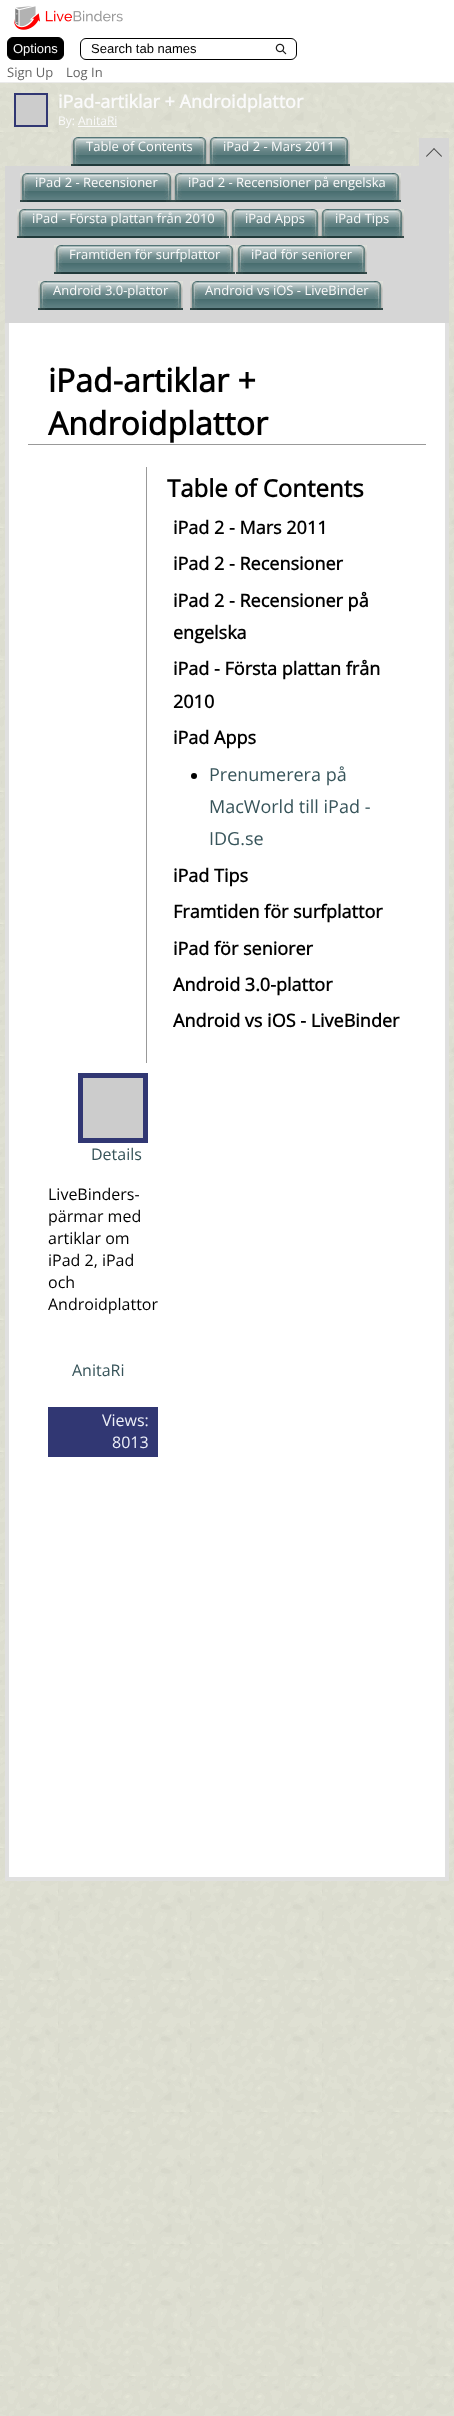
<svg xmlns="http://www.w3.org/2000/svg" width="454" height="2416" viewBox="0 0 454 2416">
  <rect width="100%" height="100%" fill="rgb(255,255,255)"/>
  <image x="0" y="83" width="454" height="2333" href="pic1.png"/>
  <rect x="0" y="82" width="454" height="1" fill="rgb(235,235,235)"/>
  <image x="14" y="6" width="109" height="24" href="pic2.png"/>
  <rect x="7.5" y="37.5" width="56" height="22" rx="5.5" fill="rgb(0,0,0)" stroke="rgb(0,0,0)"/>
  <text x="13" y="53" font-family="Liberation Sans" font-size="13" fill="rgb(250,250,250)">Options</text>
  <image x="275" y="43" width="12" height="12" href="pic3.png"/>
  <rect x="80.5" y="38.5" width="216" height="21" rx="5.5" fill="none" stroke="rgb(0,0,0)"/>
  <text x="91" y="53" font-family="Liberation Sans" font-size="13" fill="rgb(0,0,0)">Search tab names</text>
  <g font-family="Open Sans" font-size="13" fill="rgb(102,102,102)">
    <text x="7" y="77">Sign Up</text>
    <text x="66" y="77">Log In</text>
  </g>
  <rect x="14" y="93" width="34" height="34" fill="rgb(49,55,115)"/>
  <rect x="16" y="95" width="30" height="30" fill="rgb(204,204,204)"/>
  <text x="58" y="108" font-family="Open Sans" font-size="18" font-weight="bold" fill="rgb(250,250,250)">iPad-artiklar + Androidplattor</text>
  <text x="58" y="125" font-family="Open Sans" font-size="12" fill="rgb(250,250,250)">By: AnitaRi</text>
  <rect x="78" y="126" width="39" height="1" fill="rgb(250,250,250)"/>
  <rect x="5" y="166" width="444" height="157" fill="rgb(214,214,214)"/>
  <image x="71" y="137" width="9" height="29" href="pic4.png"/>
  <image x="80" y="137" width="119" height="29" href="pic5.png"/>
  <text x="86" y="151" font-family="Open Sans" font-size="13" fill="rgb(250,250,250)">Table of Contents</text>
  <image x="199" y="137" width="9" height="29" href="pic6.png"/>
  <image x="208" y="137" width="9" height="29" href="pic4.png"/>
  <image x="217" y="137" width="124" height="29" href="pic7.png"/>
  <text x="223" y="151" font-family="Open Sans" font-size="13" fill="rgb(250,250,250)">iPad 2 - Mars 2011</text>
  <image x="341" y="137" width="9" height="29" href="pic6.png"/>
  <image x="20" y="173" width="9" height="29" href="pic4.png"/>
  <image x="29" y="173" width="135" height="29" href="pic8.png"/>
  <text x="35" y="187" font-family="Open Sans" font-size="13" fill="rgb(250,250,250)">iPad 2 - Recensioner</text>
  <image x="164" y="173" width="9" height="29" href="pic6.png"/>
  <image x="173" y="173" width="9" height="29" href="pic4.png"/>
  <image x="182" y="173" width="210" height="29" href="pic9.png"/>
  <text x="188" y="187" font-family="Open Sans" font-size="13" fill="rgb(250,250,250)">iPad 2 - Recensioner på engelska</text>
  <image x="392" y="173" width="9" height="29" href="pic6.png"/>
  <image x="17" y="209" width="9" height="29" href="pic4.png"/>
  <image x="26" y="209" width="194" height="29" href="pic10.png"/>
  <text x="32" y="223" font-family="Open Sans" font-size="13" fill="rgb(250,250,250)">iPad - Första plattan från 2010</text>
  <image x="220" y="209" width="9" height="29" href="pic6.png"/>
  <image x="230" y="209" width="9" height="29" href="pic4.png"/>
  <image x="239" y="209" width="72" height="29" href="pic11.png"/>
  <text x="245" y="223" font-family="Open Sans" font-size="13" fill="rgb(250,250,250)">iPad Apps</text>
  <image x="311" y="209" width="9" height="29" href="pic6.png"/>
  <image x="320" y="209" width="9" height="29" href="pic4.png"/>
  <image x="329" y="209" width="66" height="29" href="pic12.png"/>
  <text x="335" y="223" font-family="Open Sans" font-size="13" fill="rgb(250,250,250)">iPad Tips</text>
  <image x="395" y="209" width="9" height="29" href="pic6.png"/>
  <image x="54" y="245" width="9" height="29" href="pic4.png"/>
  <image x="63" y="245" width="163" height="29" href="pic13.png"/>
  <text x="69" y="259" font-family="Open Sans" font-size="13" fill="rgb(250,250,250)">Framtiden för surfplattor</text>
  <image x="226" y="245" width="9" height="29" href="pic6.png"/>
  <image x="236" y="245" width="9" height="29" href="pic4.png"/>
  <image x="245" y="245" width="113" height="29" href="pic14.png"/>
  <text x="251" y="259" font-family="Open Sans" font-size="13" fill="rgb(250,250,250)">iPad för seniorer</text>
  <image x="358" y="245" width="9" height="29" href="pic6.png"/>
  <image x="38" y="281" width="9" height="29" href="pic4.png"/>
  <image x="47" y="281" width="127" height="29" href="pic15.png"/>
  <text x="53" y="295" font-family="Open Sans" font-size="13" fill="rgb(250,250,250)">Android 3.0-plattor</text>
  <image x="174" y="281" width="9" height="29" href="pic6.png"/>
  <image x="190" y="281" width="9" height="29" href="pic4.png"/>
  <image x="199" y="281" width="175" height="29" href="pic16.png"/>
  <text x="205" y="295" font-family="Open Sans" font-size="13" fill="rgb(250,250,250)">Android vs iOS - LiveBinder</text>
  <image x="374" y="281" width="9" height="29" href="pic6.png"/>
  <image x="419" y="138" width="30" height="28" href="pic17.png"/>
  <rect x="9" y="323" width="436" height="1554" fill="rgb(255,255,255)"/>
  <rect x="445" y="323" width="4" height="1558" fill="rgb(224,224,224)"/>
  <rect x="5" y="1877" width="444" height="4" fill="rgb(224,224,224)"/>
  <rect x="5" y="323" width="4" height="1558" fill="rgb(224,224,224)"/>
  <rect x="28" y="444" width="398" height="1" fill="rgb(153,153,153)"/>
  <g font-family="Open Sans" font-size="32" font-weight="bold" fill="rgb(0,0,0)">
    <text>
      <tspan x="48" y="392">iPad-artiklar +</tspan>
      <tspan x="48" y="435">Androidplattor</tspan>
    </text>
  </g>
  <rect x="146" y="467" width="1" height="596" fill="rgb(153,153,153)"/>
  <text x="167" y="497" font-family="Open Sans" font-size="24" font-weight="bold" fill="rgb(0,0,0)">Table of Contents</text>
  <g font-family="Open Sans" font-size="18" font-weight="bold" fill="rgb(0,0,0)">
    <text x="173" y="534">iPad 2 - Mars 2011</text>
    <text x="173" y="570">iPad 2 - Recensioner</text>
    <text>
      <tspan x="173" y="607">iPad 2 - Recensioner på</tspan>
      <tspan x="173" y="639">engelska</tspan>
    </text>
    <text>
      <tspan x="173" y="675">iPad - Första plattan från</tspan>
      <tspan x="173" y="708">2010</tspan>
    </text>
    <text x="173" y="744">iPad Apps</text>
  </g>
  <circle cx="194" cy="776" r="3" fill="rgb(0,0,0)"/>
  <g font-family="Open Sans" font-size="18" fill="rgb(55,84,90)">
    <text>
      <tspan x="209" y="781">Prenumerera på</tspan>
      <tspan x="209" y="813">MacWorld till iPad -</tspan>
      <tspan x="209" y="845">IDG.se</tspan>
    </text>
  </g>
  <g font-family="Open Sans" font-size="18" font-weight="bold" fill="rgb(0,0,0)">
    <text x="173" y="882">iPad Tips</text>
    <text x="173" y="918">Framtiden för surfplattor</text>
    <text x="173" y="955">iPad för seniorer</text>
    <text x="173" y="991">Android 3.0-plattor</text>
    <text x="173" y="1027">Android vs iOS - LiveBinder</text>
  </g>
  <rect x="78" y="1073" width="70" height="70" fill="rgb(49,55,115)"/>
  <rect x="83" y="1078" width="60" height="60" fill="rgb(204,204,204)"/>
  <text x="91" y="1160" font-family="Open Sans" font-size="16" fill="rgb(55,84,90)">Details</text>
  <g font-family="Open Sans" font-size="16" fill="rgb(0,0,0)">
    <text>
      <tspan x="48" y="1200">LiveBinders-</tspan>
      <tspan x="48" y="1222">pärmar med</tspan>
      <tspan x="48" y="1244">artiklar om</tspan>
      <tspan x="48" y="1266">iPad 2, iPad</tspan>
      <tspan x="48" y="1288">och</tspan>
      <tspan x="48" y="1310">Androidplattor</tspan>
    </text>
  </g>
  <text x="72" y="1376" font-family="Open Sans" font-size="16" fill="rgb(55,84,90)">AnitaRi</text>
  <rect x="48" y="1407" width="110" height="50" fill="rgb(49,55,115)"/>
  <g font-family="Open Sans" font-size="16" fill="rgb(237,239,248)">
    <text x="102" y="1426">Views:</text>
    <text x="112" y="1448">8013</text>
  </g>
</svg>
